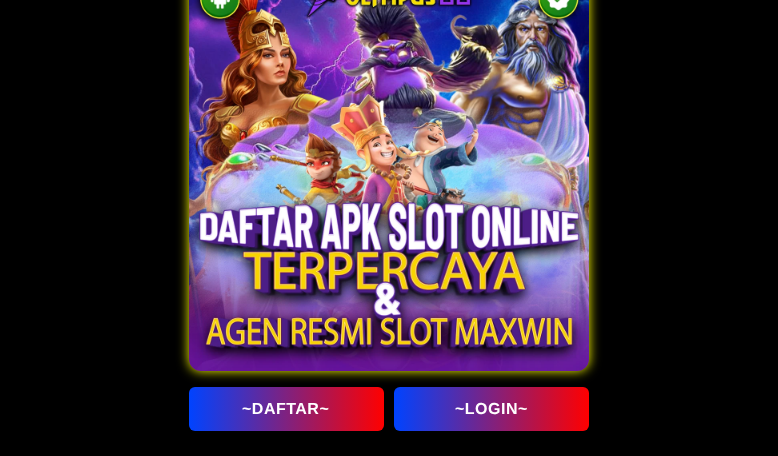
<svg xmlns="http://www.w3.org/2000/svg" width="778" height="456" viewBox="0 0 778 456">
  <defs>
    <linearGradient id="g1" gradientUnits="userSpaceOnUse" x1="189" y1="409" x2="384" y2="409"><stop offset="0" stop-color="rgb(0,67,255)"/><stop offset="1" stop-color="rgb(255,0,0)"/></linearGradient>
    <linearGradient id="g2" gradientUnits="userSpaceOnUse" x1="394" y1="409" x2="589" y2="409"><stop offset="0" stop-color="rgb(0,67,255)"/><stop offset="1" stop-color="rgb(255,0,0)"/></linearGradient>
  </defs>
  <rect width="100%" height="100%" fill="rgb(0,0,0)"/>
  <rect x="189" y="-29" width="400" height="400" rx="12" fill="rgb(255,255,0)" filter="blur(6px)"/>
  <image x="189" y="0" width="400" height="371" href="pic1.png"/>
  <rect x="189" y="387" width="195" height="44" rx="6" fill="url(#g1)"/>
  <text x="242" y="414" font-family="Liberation Sans" font-size="16" font-weight="bold" letter-spacing="0.5" fill="rgb(255,255,255)">~DAFTAR~</text>
  <rect x="394" y="387" width="195" height="44" rx="6" fill="url(#g2)"/>
  <text x="455" y="414" font-family="Liberation Sans" font-size="16" font-weight="bold" letter-spacing="0.5" fill="rgb(255,255,255)">~LOGIN~</text>
</svg>
